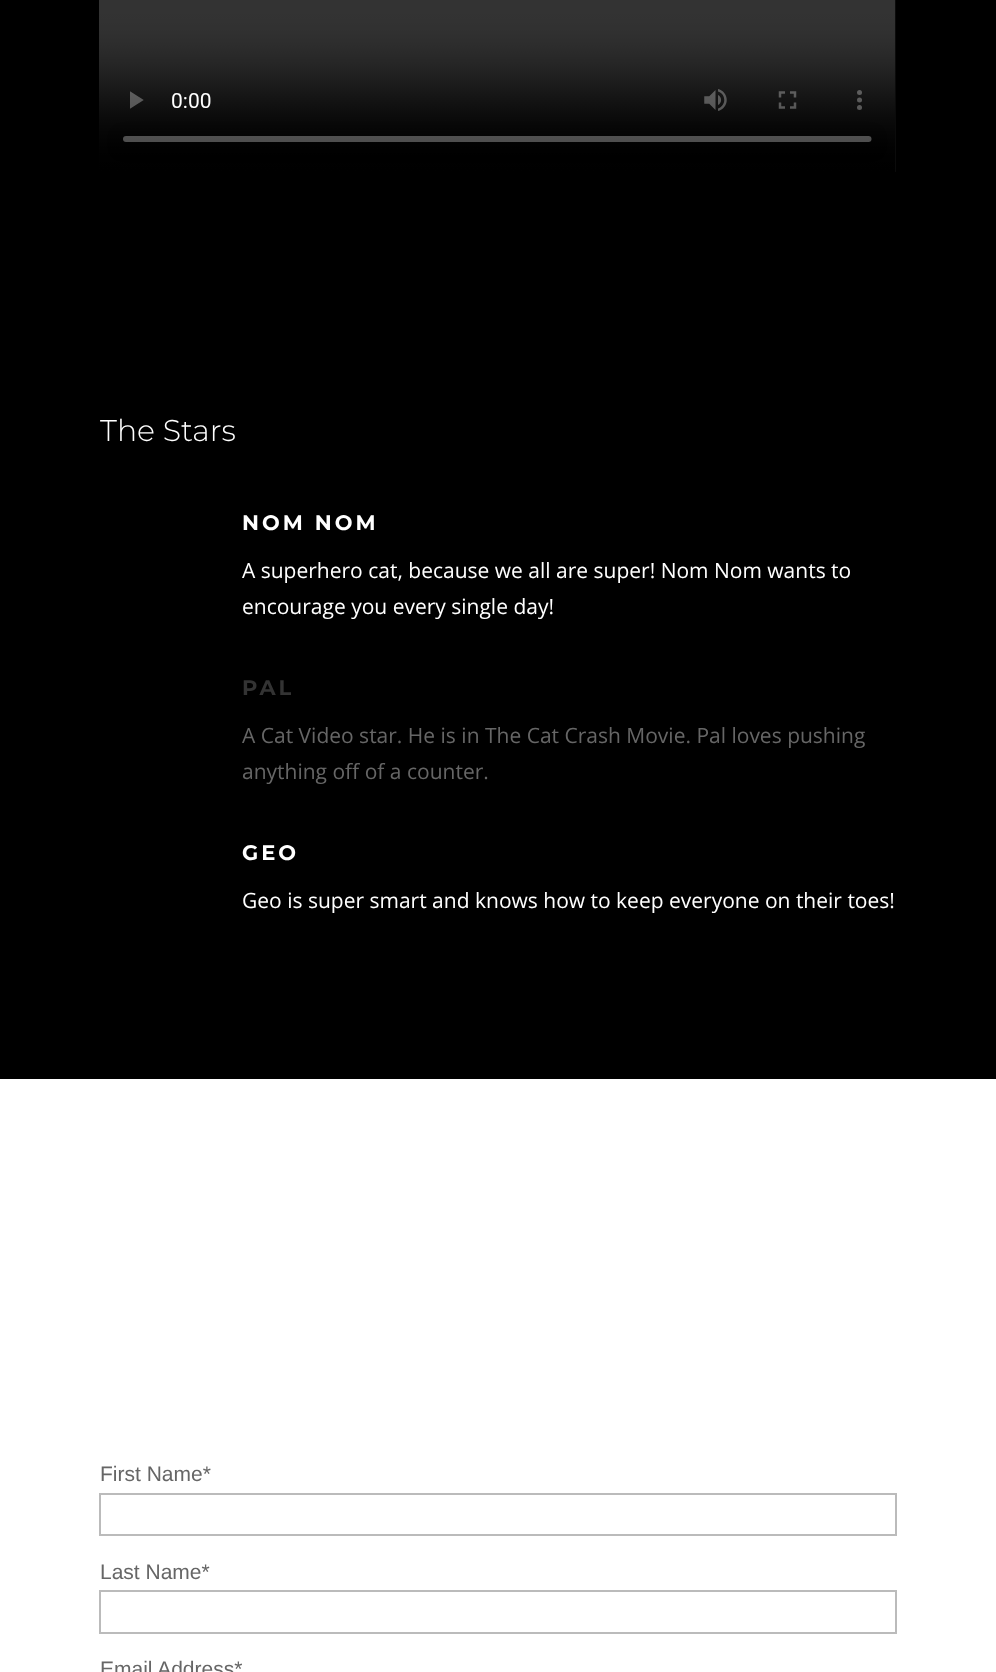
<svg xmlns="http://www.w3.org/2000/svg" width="996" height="1672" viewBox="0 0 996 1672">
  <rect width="100%" height="100%" fill="rgb(255,255,255)"/>
  <rect x="0" y="0" width="996" height="1079" fill="rgb(0,0,0)"/>
  <image x="99" y="0" width="797" height="172" href="pic1.png"/>
  <text x="100" y="441" font-family="Montserrat" font-size="30" font-weight="300" fill="rgb(255,255,255)">The Stars</text>
  <text x="242" y="530" font-family="Montserrat" font-size="21" font-weight="bold" letter-spacing="3" fill="rgb(255,255,255)">NOM NOM</text>
  <g font-family="Open Sans" font-size="21" fill="rgb(255,255,255)">
    <text>
      <tspan x="242" y="578">A superhero cat, because we all are super! Nom Nom wants to</tspan>
      <tspan x="242" y="614">encourage you every single day!</tspan>
    </text>
  </g>
  <text x="242" y="695" font-family="Montserrat" font-size="21" font-weight="bold" letter-spacing="3" fill="rgb(51,51,51)">PAL</text>
  <g font-family="Open Sans" font-size="21" fill="rgb(102,102,102)">
    <text>
      <tspan x="242" y="743">A Cat Video star. He is in The Cat Crash Movie. Pal loves pushing</tspan>
      <tspan x="242" y="779">anything off of a counter.</tspan>
    </text>
  </g>
  <text x="242" y="860" font-family="Montserrat" font-size="21" font-weight="bold" letter-spacing="3" fill="rgb(255,255,255)">GEO</text>
  <text x="242" y="908" font-family="Open Sans" font-size="21" fill="rgb(255,255,255)">Geo is super smart and knows how to keep everyone on their toes!</text>
  <text x="100" y="1481" font-family="Liberation Sans" font-size="21" fill="rgb(102,102,102)">First Name*</text>
  <rect x="100" y="1494" width="796" height="41" fill="none" stroke="rgb(187,187,187)" stroke-width="2"/>
  <text x="100" y="1579" font-family="Liberation Sans" font-size="21" fill="rgb(102,102,102)">Last Name*</text>
  <rect x="100" y="1591" width="796" height="42" fill="none" stroke="rgb(187,187,187)" stroke-width="2"/>
  <text x="100" y="1676" font-family="Liberation Sans" font-size="21" fill="rgb(102,102,102)">Email Address*</text>
</svg>
